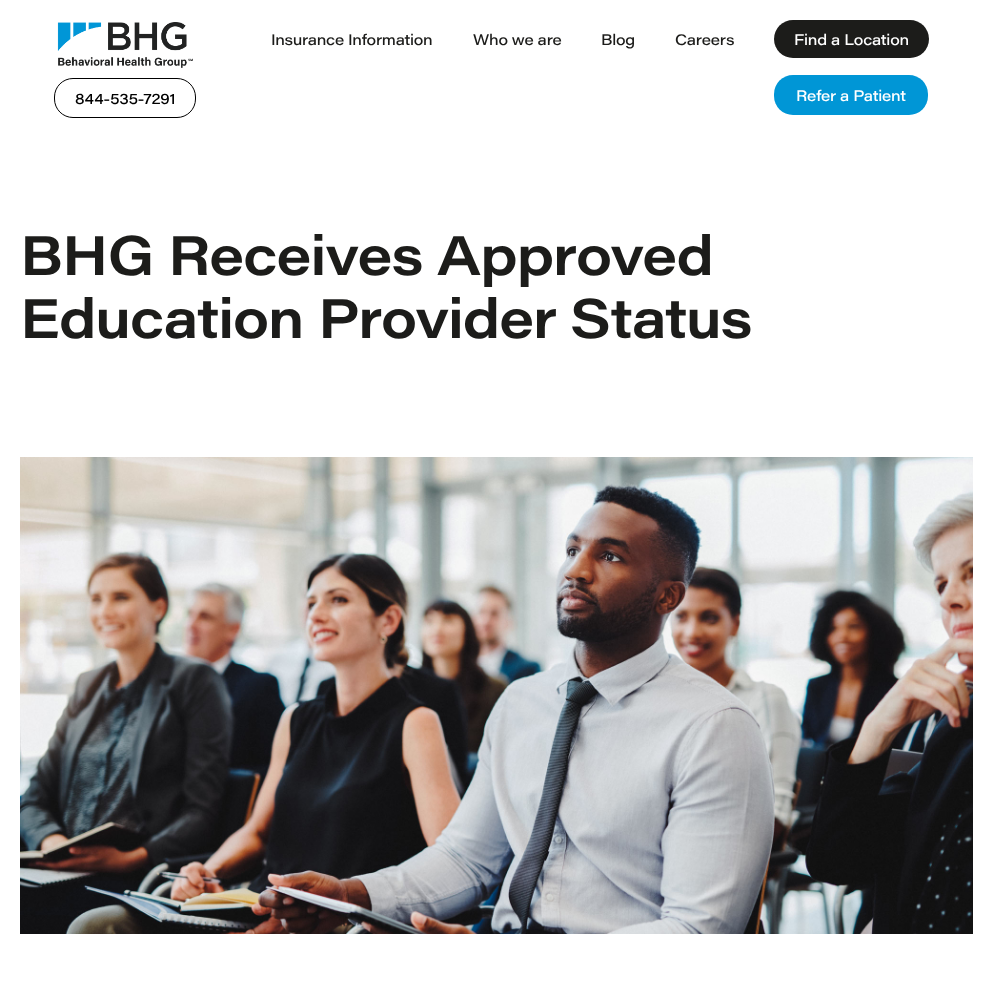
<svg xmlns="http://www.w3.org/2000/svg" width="993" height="997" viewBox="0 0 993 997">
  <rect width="100%" height="100%" fill="rgb(255,255,255)"/>
  <image x="57" y="22" width="136" height="46" href="pic1.png"/>
  <rect x="54.5" y="78.5" width="141" height="39" rx="18.5" fill="none" stroke="rgb(0,0,0)"/>
  <text x="75" y="104" font-family="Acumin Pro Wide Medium" font-size="15" font-weight="500" letter-spacing="-0.25" fill="rgb(0,0,0)">844-535-7291</text>
  <g font-family="Acumin Pro Wide Medium" font-size="15" font-weight="500" letter-spacing="-0.25" fill="rgb(28,28,26)">
    <text x="271" y="45">Insurance Information</text>
    <text x="473" y="45">Who we are</text>
    <text x="601" y="45">Blog</text>
    <text x="675" y="45">Careers</text>
  </g>
  <rect x="774" y="20" width="155" height="38" rx="19" fill="rgb(28,28,26)"/>
  <text x="794" y="45" font-family="Acumin Pro Wide Medium" font-size="15" font-weight="500" letter-spacing="-0.25" fill="rgb(255,255,255)">Find a Location</text>
  <rect x="774" y="75" width="154" height="40" rx="19" fill="rgb(0,150,214)"/>
  <text x="796" y="101" font-family="Acumin Pro Wide Medium" font-size="15" font-weight="500" letter-spacing="-0.25" fill="rgb(255,255,255)">Refer a Patient</text>
  <g font-family="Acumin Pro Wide" font-size="55" font-weight="600" letter-spacing="-1" fill="rgb(28,28,26)">
    <text>
      <tspan x="20" y="275">BHG Receives Approved</tspan>
      <tspan x="20" y="338">Education Provider Status</tspan>
    </text>
  </g>
  <image x="20" y="457" width="953" height="477" href="pic2.png"/>
</svg>
